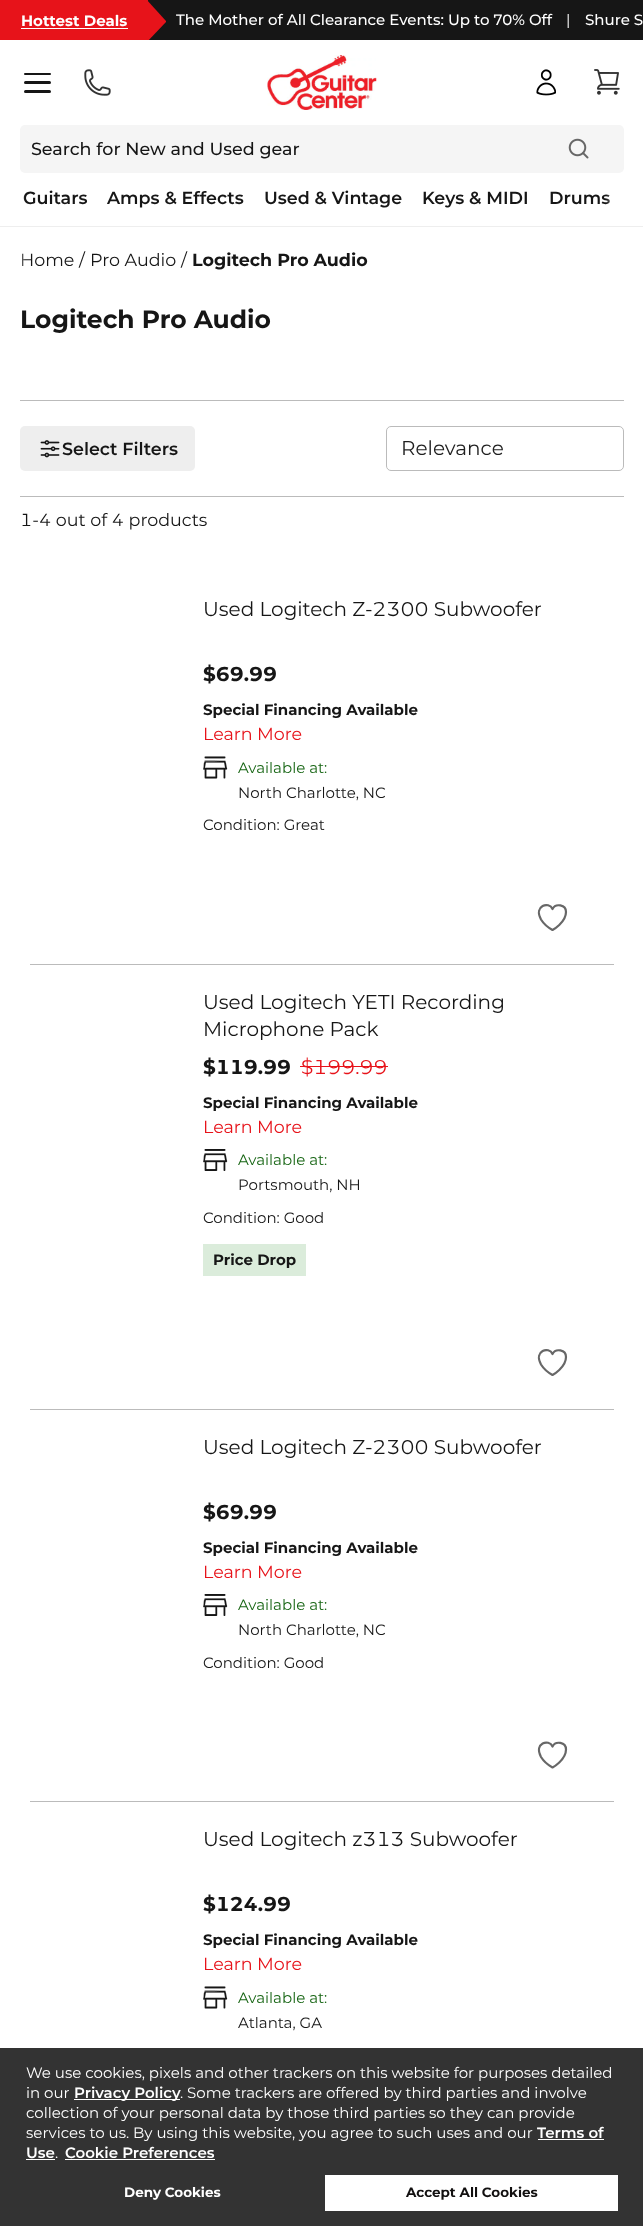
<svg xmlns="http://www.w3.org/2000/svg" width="643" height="2226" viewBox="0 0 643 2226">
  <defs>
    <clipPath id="clip1"><rect x="0" y="0" width="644" height="40"/></clipPath>
    <linearGradient id="g1" gradientUnits="userSpaceOnUse" x1="0" y1="195" x2="25" y2="195"><stop offset="0.67" stop-color="rgb(255,255,255)" stop-opacity="0.9"/><stop offset="1" stop-color="rgb(255,255,255)" stop-opacity="0"/></linearGradient>
    <linearGradient id="g2" gradientUnits="userSpaceOnUse" x1="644" y1="195" x2="606" y2="195"><stop offset="0.67" stop-color="rgb(255,255,255)" stop-opacity="0.9"/><stop offset="1" stop-color="rgb(255,255,255)" stop-opacity="0"/></linearGradient>
    <linearGradient id="g3" gradientUnits="userSpaceOnUse" x1="0" y1="260" x2="25" y2="260"><stop offset="0.67" stop-color="rgb(254,254,254)" stop-opacity="0.9"/><stop offset="1" stop-color="rgb(254,254,254)" stop-opacity="0"/></linearGradient>
  </defs>
  <rect width="100%" height="100%" fill="rgb(255,255,255)"/>
  <rect x="148" y="0" width="495" height="40" fill="rgb(22,22,22)"/>
  <rect x="0" y="0" width="148" height="40" fill="rgb(231,19,26)"/>
  <text x="21" y="26" font-family="Montserrat" font-size="15" font-weight="bold" fill="rgb(255,255,255)">Hottest Deals</text>
  <rect x="21" y="28" width="107" height="1" fill="rgb(255,255,255)"/>
  <g clip-path="url(#clip1)">
    <path d="M146-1L166 21V22L146 43Z" fill="rgb(231,19,26)"/>
  </g>
  <text x="176" y="25" font-family="Montserrat" font-size="15" font-weight="500" fill="rgb(255,255,255)">The Mother of All Clearance Events: Up to 70% Off</text>
  <text x="566" y="25" font-family="Montserrat" font-size="15" fill="rgb(255,255,255)">|</text>
  <text x="585" y="25" font-family="Montserrat" font-size="15" font-weight="500" fill="rgb(255,255,255)">Shure S</text>
  <rect x="24" y="73" width="27" height="2" rx="1" fill="rgb(22,22,22)"/>
  <rect x="24" y="81" width="27" height="3" rx="1.5" fill="rgb(22,22,22)"/>
  <rect x="24" y="90" width="27" height="3" rx="1.5" fill="rgb(22,22,22)"/>
  <image x="84" y="69" width="27" height="27" href="pic1.png"/>
  <image x="267" y="55" width="110" height="55" href="pic2.png"/>
  <image x="536" y="69" width="20" height="27" href="pic3.png"/>
  <image x="594" y="69" width="26" height="26" href="pic4.png"/>
  <rect x="20" y="125" width="604" height="48" rx="5" fill="rgb(245,245,245)"/>
  <text x="31" y="155" font-family="Montserrat" font-size="17.5" font-weight="500" fill="rgb(22,22,22)">Search for New and Used gear</text>
  <image x="568" y="138" width="21" height="21" href="pic5.png"/>
  <rect x="0" y="226" width="643" height="1" fill="rgb(238,238,238)"/>
  <g font-family="Montserrat" font-size="17.5" font-weight="600" fill="rgb(22,22,22)">
    <text x="23" y="204">Guitars</text>
    <text x="107" y="204">Amps &amp; Effects</text>
    <text x="264" y="204">Used &amp; Vintage</text>
    <text x="422" y="204">Keys &amp; MIDI</text>
    <text x="549" y="204">Drums</text>
  </g>
  <rect x="23" y="194" width="2" height="8" fill="url(#g1)"/>
  <rect x="606" y="194" width="4" height="10" fill="url(#g2)"/>
  <g font-family="Montserrat" font-size="17.5" fill="rgb(22,22,22)">
    <text x="20" y="266">Home</text>
    <text x="79" y="266">/</text>
    <text x="90" y="266">Pro Audio</text>
    <text x="181" y="266">/</text>
  </g>
  <text x="192" y="266" font-family="Montserrat" font-size="17.5" font-weight="bold" fill="rgb(22,22,22)">Logitech Pro Audio</text>
  <rect x="22" y="253" width="3" height="13" fill="url(#g3)"/>
  <text x="20" y="328" font-family="Montserrat" font-size="25" font-weight="bold" fill="rgb(22,22,22)">Logitech Pro Audio</text>
  <rect x="20" y="400" width="604" height="1" fill="rgb(187,187,187)"/>
  <rect x="20" y="426" width="175" height="45" rx="5" fill="rgb(238,238,238)"/>
  <image x="40" y="440" width="20" height="18" href="pic6.png"/>
  <text x="62" y="455" font-family="Montserrat" font-size="17.5" font-weight="600" fill="rgb(22,22,22)">Select Filters</text>
  <rect x="386.5" y="426.5" width="237" height="44" rx="4.5" fill="none" stroke="rgb(187,187,187)"/>
  <text x="401" y="455" font-family="Montserrat" font-size="20" fill="rgb(31,31,31)">Relevance</text>
  <rect x="20" y="496" width="604" height="1" fill="rgb(187,187,187)"/>
  <text x="20" y="526" font-family="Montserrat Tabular" font-size="17.5" fill="rgb(22,22,22)">1-4 out of 4 products</text>
  <rect x="30" y="964" width="584" height="1" fill="rgb(187,187,187)"/>
  <text x="203" y="616" font-family="Montserrat Tabular" font-size="20" fill="rgb(22,22,22)">Used Logitech Z-2300 Subwoofer</text>
  <text x="203" y="681" font-family="Montserrat Tabular" font-size="20" font-weight="bold" fill="rgb(22,22,22)">$69.99</text>
  <text x="203" y="715" font-family="Montserrat" font-size="15" font-weight="bold" fill="rgb(22,22,22)">Special Financing Available</text>
  <text x="203" y="740" font-family="Montserrat" font-size="17.5" fill="rgb(231,19,26)">Learn More</text>
  <image x="203" y="756" width="25" height="23" href="pic7.png"/>
  <text x="238" y="773" font-family="Montserrat" font-size="15" fill="rgb(24,102,21)">Available at:</text>
  <g font-family="Montserrat" font-size="15" fill="rgb(22,22,22)">
    <text x="238" y="798">North Charlotte, NC</text>
    <text x="203" y="830">Condition: Great</text>
  </g>
  <path d="M566 912C566 904.5 555.5 903 552.5 909C549 901 533.5 905.5 541 919.5C543.5 923.5 548 927.5 552.5 930C552.5 930 566 922.5 566 912Z" fill="none" stroke="rgb(103,103,103)" stroke-width="2.2" stroke-linecap="round" stroke-linejoin="round"/>
  <rect x="30" y="1409" width="584" height="1" fill="rgb(187,187,187)"/>
  <g font-family="Montserrat" font-size="20" fill="rgb(22,22,22)">
    <text>
      <tspan x="203" y="1009">Used Logitech YETI Recording</tspan>
      <tspan x="203" y="1036">Microphone Pack</tspan>
    </text>
  </g>
  <text x="203" y="1074" font-family="Montserrat Tabular" font-size="20" font-weight="bold" fill="rgb(22,22,22)">$119.99</text>
  <text x="301" y="1074" font-family="Montserrat Tabular" font-size="20" fill="rgb(231,19,26)">$199.99</text>
  <rect x="300" y="1066" width="88" height="1" fill="rgb(231,19,26)"/>
  <text x="203" y="1108" font-family="Montserrat" font-size="15" font-weight="bold" fill="rgb(22,22,22)">Special Financing Available</text>
  <text x="203" y="1133" font-family="Montserrat" font-size="17.5" fill="rgb(231,19,26)">Learn More</text>
  <image x="203" y="1149" width="25" height="22" href="pic8.png"/>
  <text x="238" y="1165" font-family="Montserrat" font-size="15" fill="rgb(24,102,21)">Available at:</text>
  <g font-family="Montserrat" font-size="15" fill="rgb(22,22,22)">
    <text x="238" y="1190">Portsmouth, NH</text>
    <text x="203" y="1223">Condition: Good</text>
  </g>
  <rect x="203" y="1244" width="103" height="32" fill="rgb(219,236,219)"/>
  <text x="213" y="1265" font-family="Montserrat" font-size="15" font-weight="bold" fill="rgb(22,22,22)">Price Drop</text>
  <path d="M566 1357C566 1349.5 555.5 1348 552.5 1354C549 1346 533.5 1350.5 541 1364.5C543.5 1368.5 548 1372.5 552.5 1375C552.5 1375 566 1367.5 566 1357Z" fill="none" stroke="rgb(103,103,103)" stroke-width="2.2" stroke-linecap="round" stroke-linejoin="round"/>
  <rect x="30" y="1801" width="584" height="1" fill="rgb(187,187,187)"/>
  <text x="203" y="1454" font-family="Montserrat Tabular" font-size="20" fill="rgb(22,22,22)">Used Logitech Z-2300 Subwoofer</text>
  <text x="203" y="1519" font-family="Montserrat Tabular" font-size="20" font-weight="bold" fill="rgb(22,22,22)">$69.99</text>
  <text x="203" y="1553" font-family="Montserrat" font-size="15" font-weight="bold" fill="rgb(22,22,22)">Special Financing Available</text>
  <text x="203" y="1578" font-family="Montserrat" font-size="17.5" fill="rgb(231,19,26)">Learn More</text>
  <image x="203" y="1594" width="25" height="22" href="pic8.png"/>
  <text x="238" y="1610" font-family="Montserrat" font-size="15" fill="rgb(24,102,21)">Available at:</text>
  <g font-family="Montserrat" font-size="15" fill="rgb(22,22,22)">
    <text x="238" y="1635">North Charlotte, NC</text>
    <text x="203" y="1668">Condition: Good</text>
  </g>
  <path d="M566 1749.5C566 1742 555.5 1740.5 552.5 1746.5C549 1738.5 533.5 1743 541 1757C543.5 1761 548 1765 552.5 1767.5C552.5 1767.5 566 1760 566 1749.5Z" fill="none" stroke="rgb(103,103,103)" stroke-width="2.2" stroke-linecap="round" stroke-linejoin="round"/>
  <text x="203" y="1846" font-family="Montserrat Tabular" font-size="20" fill="rgb(22,22,22)">Used Logitech z313 Subwoofer</text>
  <text x="203" y="1911" font-family="Montserrat Tabular" font-size="20" font-weight="bold" fill="rgb(22,22,22)">$124.99</text>
  <text x="203" y="1945" font-family="Montserrat" font-size="15" font-weight="bold" fill="rgb(22,22,22)">Special Financing Available</text>
  <text x="203" y="1970" font-family="Montserrat" font-size="17.5" fill="rgb(231,19,26)">Learn More</text>
  <image x="203" y="1986" width="25" height="23" href="pic7.png"/>
  <text x="238" y="2003" font-family="Montserrat" font-size="15" fill="rgb(24,102,21)">Available at:</text>
  <text x="238" y="2028" font-family="Montserrat" font-size="15" fill="rgb(22,22,22)">Atlanta, GA</text>
  <rect x="0" y="2048" width="643" height="178" fill="rgb(51,51,51)"/>
  <g font-family="Montserrat" font-size="15" fill="rgb(255,255,255)">
    <text>
      <tspan x="26" y="2078">We use cookies, pixels and other trackers on this website for purposes detailed</tspan>
      <tspan x="26" y="2098">in our</tspan>
    </text>
  </g>
  <rect x="74" y="2099" width="106" height="1" fill="rgb(255,255,255)"/>
  <text x="74" y="2098" font-family="Montserrat" font-size="15" font-weight="600" fill="rgb(255,255,255)">Privacy Policy</text>
  <g font-family="Montserrat" font-size="15" fill="rgb(255,255,255)">
    <text x="180" y="2098">. Some trackers are offered by third parties and involve</text>
    <text>
      <tspan x="26" y="2118">collection of your personal data by those third parties so they can provide</tspan>
      <tspan x="26" y="2138">services to us. By using this website, you agree to such uses and our</tspan>
    </text>
  </g>
  <text x="537" y="2138" font-family="Montserrat" font-size="15" font-weight="600" fill="rgb(255,255,255)">Terms of</text>
  <rect x="538" y="2139" width="66" height="1" fill="rgb(255,255,255)"/>
  <text x="26" y="2158" font-family="Montserrat" font-size="15" font-weight="600" fill="rgb(255,255,255)">Use</text>
  <rect x="26" y="2159" width="29" height="1" fill="rgb(255,255,255)"/>
  <text x="55" y="2158" font-family="Montserrat" font-size="15" fill="rgb(255,255,255)">.</text>
  <text x="65" y="2158" font-family="Montserrat" font-size="15" font-weight="600" fill="rgb(255,255,255)">Cookie Preferences</text>
  <rect x="65" y="2159" width="150" height="1" fill="rgb(255,255,255)"/>
  <text x="124" y="2197" font-family="Montserrat" font-size="13.5" font-weight="bold" fill="rgb(255,255,255)">Deny Cookies</text>
  <rect x="325" y="2175" width="293" height="36" fill="rgb(255,255,255)"/>
  <text x="406" y="2197" font-family="Montserrat" font-size="13.5" font-weight="bold" fill="rgb(18,16,16)">Accept All Cookies</text>
</svg>
